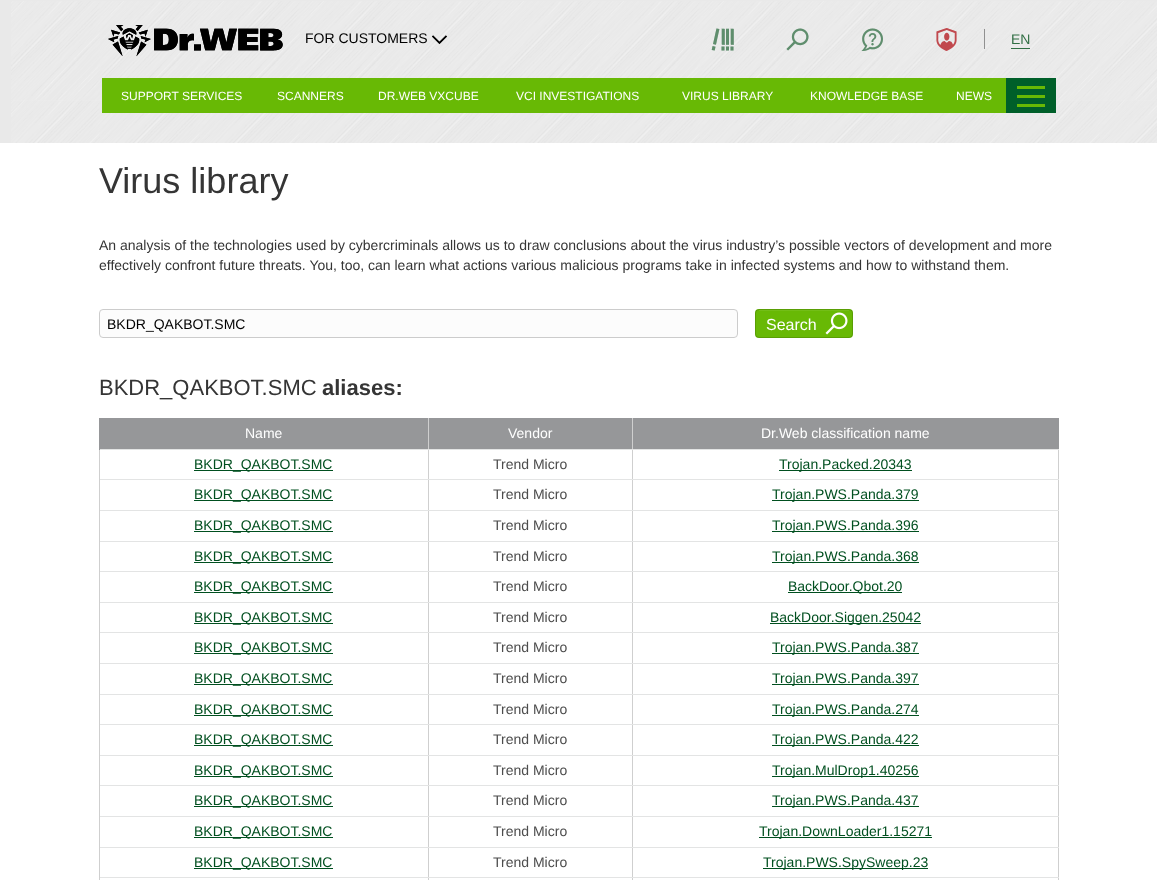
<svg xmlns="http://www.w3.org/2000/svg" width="1157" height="880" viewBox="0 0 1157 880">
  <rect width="100%" height="100%" fill="rgb(233,233,233)"/>
  <image x="11" y="1" width="1146" height="142" href="pic1.png"/>
  <image x="108" y="25" width="175" height="32" href="pic2.png"/>
  <text x="305" y="43" font-family="Liberation Sans" font-size="14" fill="rgb(0,0,0)">FOR CUSTOMERS</text>
  <image x="432" y="35" width="15" height="9" href="pic3.png"/>
  <image x="711" y="28" width="23" height="23" href="pic4.png"/>
  <image x="786" y="28" width="23" height="23" href="pic5.png"/>
  <image x="861" y="28" width="22" height="23" href="pic6.png"/>
  <image x="936" y="28" width="21" height="23" href="pic7.png"/>
  <rect x="984" y="29" width="1" height="20" fill="rgb(144,144,144)"/>
  <rect x="1011" y="48" width="19" height="1" fill="rgb(49,111,68)"/>
  <text x="1011" y="44" font-family="Liberation Sans" font-size="14" fill="rgb(49,111,68)">EN</text>
  <rect x="102" y="78" width="904" height="35" fill="rgb(104,185,5)"/>
  <g font-family="Liberation Sans" font-size="12" fill="rgb(255,255,255)">
    <text x="121" y="100">SUPPORT SERVICES</text>
    <text x="277" y="100">SCANNERS</text>
    <text x="378" y="100">DR.WEB VXCUBE</text>
    <text x="516" y="100">VCI INVESTIGATIONS</text>
    <text x="682" y="100">VIRUS LIBRARY</text>
    <text x="810" y="100">KNOWLEDGE BASE</text>
    <text x="956" y="100">NEWS</text>
  </g>
  <rect x="1006" y="78" width="50" height="35" fill="rgb(0,95,42)"/>
  <rect x="1017" y="86" width="28" height="3" fill="rgb(104,185,5)"/>
  <rect x="1017" y="95" width="28" height="3" fill="rgb(104,185,5)"/>
  <rect x="1017" y="104" width="28" height="3" fill="rgb(104,185,5)"/>
  <rect x="0" y="143" width="1157" height="737" fill="rgb(255,255,255)"/>
  <text x="99" y="193" font-family="Liberation Sans" font-size="36" fill="rgb(53,53,53)">Virus library</text>
  <g font-family="Liberation Sans" font-size="14" fill="rgb(53,53,53)">
    <text>
      <tspan x="99" y="250">An analysis of the technologies used by cybercriminals allows us to draw conclusions about the virus industry’s possible vectors of development and more</tspan>
      <tspan x="99" y="270">effectively confront future threats. You, too, can learn what actions various malicious programs take in infected systems and how to withstand them.</tspan>
    </text>
  </g>
  <rect x="99.5" y="309.5" width="638" height="28" rx="3.5" fill="rgb(252,252,252)" stroke="rgb(204,204,204)"/>
  <text x="107" y="329" font-family="Liberation Sans" font-size="14" fill="rgb(0,0,0)">BKDR_QAKBOT.SMC</text>
  <rect x="755" y="309" width="98" height="29" rx="4" fill="rgb(104,185,5)"/>
  <rect x="755.5" y="309.5" width="97" height="28" rx="3.5" fill="none" stroke="rgba(0,0,0,0.14)"/>
  <rect x="759" y="310" width="90" height="1" fill="rgb(115,190,23)"/>
  <text x="766" y="330" font-family="Liberation Sans" font-size="16" fill="rgb(255,255,255)">Search</text>
  <image x="825" y="312" width="23" height="23" href="pic8.png"/>
  <text x="99" y="395" font-family="Liberation Sans" font-size="22" fill="rgb(53,53,53)">BKDR_QAKBOT.SMC</text>
  <text x="322" y="395" font-family="Liberation Sans" font-size="22" font-weight="bold" fill="rgb(53,53,53)">aliases:</text>
  <rect x="1058" y="449" width="1" height="431" fill="rgb(207,207,207)"/>
  <rect x="99" y="878" width="1" height="2" fill="rgb(207,207,207)"/>
  <rect x="99" y="418" width="960" height="1" fill="rgb(150,151,153)"/>
  <rect x="100" y="419" width="328" height="30" fill="rgb(150,151,153)"/>
  <rect x="1058" y="418" width="1" height="32" fill="rgb(150,151,153)"/>
  <rect x="632" y="877" width="1" height="3" fill="rgb(207,207,207)"/>
  <rect x="632" y="877" width="427" height="1" fill="rgb(227,228,228)"/>
  <rect x="632" y="847" width="1" height="31" fill="rgb(207,207,207)"/>
  <rect x="632" y="847" width="427" height="1" fill="rgb(227,228,228)"/>
  <rect x="632" y="816" width="1" height="32" fill="rgb(207,207,207)"/>
  <rect x="632" y="816" width="427" height="1" fill="rgb(227,228,228)"/>
  <rect x="632" y="785" width="1" height="32" fill="rgb(207,207,207)"/>
  <rect x="632" y="785" width="427" height="1" fill="rgb(227,228,228)"/>
  <rect x="632" y="755" width="1" height="31" fill="rgb(207,207,207)"/>
  <rect x="632" y="755" width="427" height="1" fill="rgb(227,228,228)"/>
  <rect x="632" y="724" width="1" height="32" fill="rgb(207,207,207)"/>
  <rect x="632" y="724" width="427" height="1" fill="rgb(227,228,228)"/>
  <rect x="632" y="694" width="1" height="31" fill="rgb(207,207,207)"/>
  <rect x="632" y="694" width="427" height="1" fill="rgb(227,228,228)"/>
  <rect x="632" y="663" width="1" height="32" fill="rgb(207,207,207)"/>
  <rect x="632" y="663" width="427" height="1" fill="rgb(227,228,228)"/>
  <rect x="632" y="632" width="1" height="32" fill="rgb(207,207,207)"/>
  <rect x="632" y="632" width="427" height="1" fill="rgb(227,228,228)"/>
  <rect x="632" y="602" width="1" height="31" fill="rgb(207,207,207)"/>
  <rect x="632" y="602" width="427" height="1" fill="rgb(227,228,228)"/>
  <rect x="632" y="571" width="1" height="32" fill="rgb(207,207,207)"/>
  <rect x="632" y="571" width="427" height="1" fill="rgb(227,228,228)"/>
  <rect x="632" y="541" width="1" height="31" fill="rgb(207,207,207)"/>
  <rect x="632" y="541" width="427" height="1" fill="rgb(227,228,228)"/>
  <rect x="632" y="510" width="1" height="32" fill="rgb(207,207,207)"/>
  <rect x="632" y="510" width="427" height="1" fill="rgb(227,228,228)"/>
  <rect x="632" y="479" width="1" height="32" fill="rgb(207,207,207)"/>
  <rect x="632" y="479" width="427" height="1" fill="rgb(227,228,228)"/>
  <rect x="632" y="449" width="1" height="31" fill="rgb(207,207,207)"/>
  <rect x="632" y="449" width="427" height="1" fill="rgb(227,228,228)"/>
  <rect x="632" y="418" width="1" height="32" fill="rgb(207,207,207)"/>
  <rect x="428" y="877" width="1" height="3" fill="rgb(207,207,207)"/>
  <rect x="428" y="877" width="205" height="1" fill="rgb(227,228,228)"/>
  <rect x="428" y="847" width="1" height="31" fill="rgb(207,207,207)"/>
  <rect x="428" y="847" width="205" height="1" fill="rgb(227,228,228)"/>
  <rect x="428" y="816" width="1" height="32" fill="rgb(207,207,207)"/>
  <rect x="428" y="816" width="205" height="1" fill="rgb(227,228,228)"/>
  <rect x="428" y="785" width="1" height="32" fill="rgb(207,207,207)"/>
  <rect x="428" y="785" width="205" height="1" fill="rgb(227,228,228)"/>
  <rect x="428" y="755" width="1" height="31" fill="rgb(207,207,207)"/>
  <rect x="428" y="755" width="205" height="1" fill="rgb(227,228,228)"/>
  <rect x="428" y="724" width="1" height="32" fill="rgb(207,207,207)"/>
  <rect x="428" y="724" width="205" height="1" fill="rgb(227,228,228)"/>
  <rect x="428" y="694" width="1" height="31" fill="rgb(207,207,207)"/>
  <rect x="428" y="694" width="205" height="1" fill="rgb(227,228,228)"/>
  <rect x="428" y="663" width="1" height="32" fill="rgb(207,207,207)"/>
  <rect x="428" y="663" width="205" height="1" fill="rgb(227,228,228)"/>
  <rect x="428" y="632" width="1" height="32" fill="rgb(207,207,207)"/>
  <rect x="428" y="632" width="205" height="1" fill="rgb(227,228,228)"/>
  <rect x="428" y="602" width="1" height="31" fill="rgb(207,207,207)"/>
  <rect x="428" y="602" width="205" height="1" fill="rgb(227,228,228)"/>
  <rect x="428" y="571" width="1" height="32" fill="rgb(207,207,207)"/>
  <rect x="428" y="571" width="205" height="1" fill="rgb(227,228,228)"/>
  <rect x="428" y="541" width="1" height="31" fill="rgb(207,207,207)"/>
  <rect x="428" y="541" width="205" height="1" fill="rgb(227,228,228)"/>
  <rect x="428" y="510" width="1" height="32" fill="rgb(207,207,207)"/>
  <rect x="428" y="510" width="205" height="1" fill="rgb(227,228,228)"/>
  <rect x="428" y="479" width="1" height="32" fill="rgb(207,207,207)"/>
  <rect x="428" y="479" width="205" height="1" fill="rgb(227,228,228)"/>
  <rect x="428" y="449" width="1" height="31" fill="rgb(207,207,207)"/>
  <rect x="428" y="449" width="205" height="1" fill="rgb(227,228,228)"/>
  <rect x="428" y="418" width="1" height="32" fill="rgb(207,207,207)"/>
  <rect x="99" y="877" width="330" height="1" fill="rgb(227,228,228)"/>
  <rect x="99" y="847" width="1" height="31" fill="rgb(207,207,207)"/>
  <rect x="99" y="847" width="330" height="1" fill="rgb(227,228,228)"/>
  <rect x="99" y="816" width="1" height="32" fill="rgb(207,207,207)"/>
  <rect x="99" y="816" width="330" height="1" fill="rgb(227,228,228)"/>
  <rect x="99" y="785" width="1" height="32" fill="rgb(207,207,207)"/>
  <rect x="99" y="785" width="330" height="1" fill="rgb(227,228,228)"/>
  <rect x="99" y="755" width="1" height="31" fill="rgb(207,207,207)"/>
  <rect x="99" y="755" width="330" height="1" fill="rgb(227,228,228)"/>
  <rect x="99" y="724" width="1" height="32" fill="rgb(207,207,207)"/>
  <rect x="99" y="724" width="330" height="1" fill="rgb(227,228,228)"/>
  <rect x="99" y="694" width="1" height="31" fill="rgb(207,207,207)"/>
  <rect x="99" y="694" width="330" height="1" fill="rgb(227,228,228)"/>
  <rect x="99" y="663" width="1" height="32" fill="rgb(207,207,207)"/>
  <rect x="99" y="663" width="330" height="1" fill="rgb(227,228,228)"/>
  <rect x="99" y="632" width="1" height="32" fill="rgb(207,207,207)"/>
  <rect x="99" y="632" width="330" height="1" fill="rgb(227,228,228)"/>
  <rect x="99" y="602" width="1" height="31" fill="rgb(207,207,207)"/>
  <rect x="99" y="602" width="330" height="1" fill="rgb(227,228,228)"/>
  <rect x="99" y="571" width="1" height="32" fill="rgb(207,207,207)"/>
  <rect x="99" y="571" width="330" height="1" fill="rgb(227,228,228)"/>
  <rect x="99" y="541" width="1" height="31" fill="rgb(207,207,207)"/>
  <rect x="99" y="541" width="330" height="1" fill="rgb(227,228,228)"/>
  <rect x="99" y="510" width="1" height="32" fill="rgb(207,207,207)"/>
  <rect x="99" y="510" width="330" height="1" fill="rgb(227,228,228)"/>
  <rect x="99" y="479" width="1" height="32" fill="rgb(207,207,207)"/>
  <rect x="99" y="479" width="330" height="1" fill="rgb(227,228,228)"/>
  <rect x="99" y="449" width="1" height="31" fill="rgb(207,207,207)"/>
  <rect x="99" y="449" width="330" height="1" fill="rgb(227,228,228)"/>
  <rect x="99" y="418" width="1" height="32" fill="rgb(150,151,153)"/>
  <text x="245" y="438" font-family="Liberation Sans" font-size="14" fill="rgb(255,255,255)">Name</text>
  <rect x="429" y="419" width="203" height="30" fill="rgb(150,151,153)"/>
  <text x="508" y="438" font-family="Liberation Sans" font-size="14" fill="rgb(255,255,255)">Vendor</text>
  <rect x="633" y="419" width="425" height="30" fill="rgb(150,151,153)"/>
  <text x="761" y="438" font-family="Liberation Sans" font-size="14" fill="rgb(255,255,255)">Dr.Web classification name</text>
  <rect x="194" y="470" width="139" height="1" fill="rgb(0,79,31)"/>
  <text x="194" y="469" font-family="Liberation Sans" font-size="14" fill="rgb(0,79,31)">BKDR_QAKBOT.SMC</text>
  <text x="493" y="469" font-family="Liberation Sans" font-size="14" fill="rgb(76,76,76)">Trend Micro</text>
  <rect x="779" y="470" width="133" height="1" fill="rgb(0,79,31)"/>
  <text x="779" y="469" font-family="Liberation Sans" font-size="14" fill="rgb(0,79,31)">Trojan.Packed.20343</text>
  <rect x="194" y="500" width="139" height="1" fill="rgb(0,79,31)"/>
  <text x="194" y="499" font-family="Liberation Sans" font-size="14" fill="rgb(0,79,31)">BKDR_QAKBOT.SMC</text>
  <text x="493" y="499" font-family="Liberation Sans" font-size="14" fill="rgb(76,76,76)">Trend Micro</text>
  <rect x="772" y="500" width="147" height="1" fill="rgb(0,79,31)"/>
  <text x="772" y="499" font-family="Liberation Sans" font-size="14" fill="rgb(0,79,31)">Trojan.PWS.Panda.379</text>
  <rect x="194" y="531" width="139" height="1" fill="rgb(0,79,31)"/>
  <text x="194" y="530" font-family="Liberation Sans" font-size="14" fill="rgb(0,79,31)">BKDR_QAKBOT.SMC</text>
  <text x="493" y="530" font-family="Liberation Sans" font-size="14" fill="rgb(76,76,76)">Trend Micro</text>
  <rect x="772" y="531" width="147" height="1" fill="rgb(0,79,31)"/>
  <text x="772" y="530" font-family="Liberation Sans" font-size="14" fill="rgb(0,79,31)">Trojan.PWS.Panda.396</text>
  <rect x="194" y="562" width="139" height="1" fill="rgb(0,79,31)"/>
  <text x="194" y="561" font-family="Liberation Sans" font-size="14" fill="rgb(0,79,31)">BKDR_QAKBOT.SMC</text>
  <text x="493" y="561" font-family="Liberation Sans" font-size="14" fill="rgb(76,76,76)">Trend Micro</text>
  <rect x="772" y="562" width="147" height="1" fill="rgb(0,79,31)"/>
  <text x="772" y="561" font-family="Liberation Sans" font-size="14" fill="rgb(0,79,31)">Trojan.PWS.Panda.368</text>
  <rect x="194" y="592" width="139" height="1" fill="rgb(0,79,31)"/>
  <text x="194" y="591" font-family="Liberation Sans" font-size="14" fill="rgb(0,79,31)">BKDR_QAKBOT.SMC</text>
  <text x="493" y="591" font-family="Liberation Sans" font-size="14" fill="rgb(76,76,76)">Trend Micro</text>
  <rect x="788" y="592" width="114" height="1" fill="rgb(0,79,31)"/>
  <text x="788" y="591" font-family="Liberation Sans" font-size="14" fill="rgb(0,79,31)">BackDoor.Qbot.20</text>
  <rect x="194" y="623" width="139" height="1" fill="rgb(0,79,31)"/>
  <text x="194" y="622" font-family="Liberation Sans" font-size="14" fill="rgb(0,79,31)">BKDR_QAKBOT.SMC</text>
  <text x="493" y="622" font-family="Liberation Sans" font-size="14" fill="rgb(76,76,76)">Trend Micro</text>
  <rect x="770" y="623" width="151" height="1" fill="rgb(0,79,31)"/>
  <text x="770" y="622" font-family="Liberation Sans" font-size="14" fill="rgb(0,79,31)">BackDoor.Siggen.25042</text>
  <rect x="194" y="653" width="139" height="1" fill="rgb(0,79,31)"/>
  <text x="194" y="652" font-family="Liberation Sans" font-size="14" fill="rgb(0,79,31)">BKDR_QAKBOT.SMC</text>
  <text x="493" y="652" font-family="Liberation Sans" font-size="14" fill="rgb(76,76,76)">Trend Micro</text>
  <rect x="772" y="653" width="147" height="1" fill="rgb(0,79,31)"/>
  <text x="772" y="652" font-family="Liberation Sans" font-size="14" fill="rgb(0,79,31)">Trojan.PWS.Panda.387</text>
  <rect x="194" y="684" width="139" height="1" fill="rgb(0,79,31)"/>
  <text x="194" y="683" font-family="Liberation Sans" font-size="14" fill="rgb(0,79,31)">BKDR_QAKBOT.SMC</text>
  <text x="493" y="683" font-family="Liberation Sans" font-size="14" fill="rgb(76,76,76)">Trend Micro</text>
  <rect x="772" y="684" width="147" height="1" fill="rgb(0,79,31)"/>
  <text x="772" y="683" font-family="Liberation Sans" font-size="14" fill="rgb(0,79,31)">Trojan.PWS.Panda.397</text>
  <rect x="194" y="715" width="139" height="1" fill="rgb(0,79,31)"/>
  <text x="194" y="714" font-family="Liberation Sans" font-size="14" fill="rgb(0,79,31)">BKDR_QAKBOT.SMC</text>
  <text x="493" y="714" font-family="Liberation Sans" font-size="14" fill="rgb(76,76,76)">Trend Micro</text>
  <rect x="772" y="715" width="147" height="1" fill="rgb(0,79,31)"/>
  <text x="772" y="714" font-family="Liberation Sans" font-size="14" fill="rgb(0,79,31)">Trojan.PWS.Panda.274</text>
  <rect x="194" y="745" width="139" height="1" fill="rgb(0,79,31)"/>
  <text x="194" y="744" font-family="Liberation Sans" font-size="14" fill="rgb(0,79,31)">BKDR_QAKBOT.SMC</text>
  <text x="493" y="744" font-family="Liberation Sans" font-size="14" fill="rgb(76,76,76)">Trend Micro</text>
  <rect x="772" y="745" width="147" height="1" fill="rgb(0,79,31)"/>
  <text x="772" y="744" font-family="Liberation Sans" font-size="14" fill="rgb(0,79,31)">Trojan.PWS.Panda.422</text>
  <rect x="194" y="776" width="139" height="1" fill="rgb(0,79,31)"/>
  <text x="194" y="775" font-family="Liberation Sans" font-size="14" fill="rgb(0,79,31)">BKDR_QAKBOT.SMC</text>
  <text x="493" y="775" font-family="Liberation Sans" font-size="14" fill="rgb(76,76,76)">Trend Micro</text>
  <rect x="772" y="776" width="147" height="1" fill="rgb(0,79,31)"/>
  <text x="772" y="775" font-family="Liberation Sans" font-size="14" fill="rgb(0,79,31)">Trojan.MulDrop1.40256</text>
  <rect x="194" y="806" width="139" height="1" fill="rgb(0,79,31)"/>
  <text x="194" y="805" font-family="Liberation Sans" font-size="14" fill="rgb(0,79,31)">BKDR_QAKBOT.SMC</text>
  <text x="493" y="805" font-family="Liberation Sans" font-size="14" fill="rgb(76,76,76)">Trend Micro</text>
  <rect x="772" y="806" width="147" height="1" fill="rgb(0,79,31)"/>
  <text x="772" y="805" font-family="Liberation Sans" font-size="14" fill="rgb(0,79,31)">Trojan.PWS.Panda.437</text>
  <rect x="194" y="837" width="139" height="1" fill="rgb(0,79,31)"/>
  <text x="194" y="836" font-family="Liberation Sans" font-size="14" fill="rgb(0,79,31)">BKDR_QAKBOT.SMC</text>
  <text x="493" y="836" font-family="Liberation Sans" font-size="14" fill="rgb(76,76,76)">Trend Micro</text>
  <rect x="759" y="837" width="173" height="1" fill="rgb(0,79,31)"/>
  <text x="759" y="836" font-family="Liberation Sans" font-size="14" fill="rgb(0,79,31)">Trojan.DownLoader1.15271</text>
  <rect x="194" y="868" width="139" height="1" fill="rgb(0,79,31)"/>
  <text x="194" y="867" font-family="Liberation Sans" font-size="14" fill="rgb(0,79,31)">BKDR_QAKBOT.SMC</text>
  <text x="493" y="867" font-family="Liberation Sans" font-size="14" fill="rgb(76,76,76)">Trend Micro</text>
  <rect x="763" y="868" width="165" height="1" fill="rgb(0,79,31)"/>
  <text x="763" y="867" font-family="Liberation Sans" font-size="14" fill="rgb(0,79,31)">Trojan.PWS.SpySweep.23</text>
</svg>
